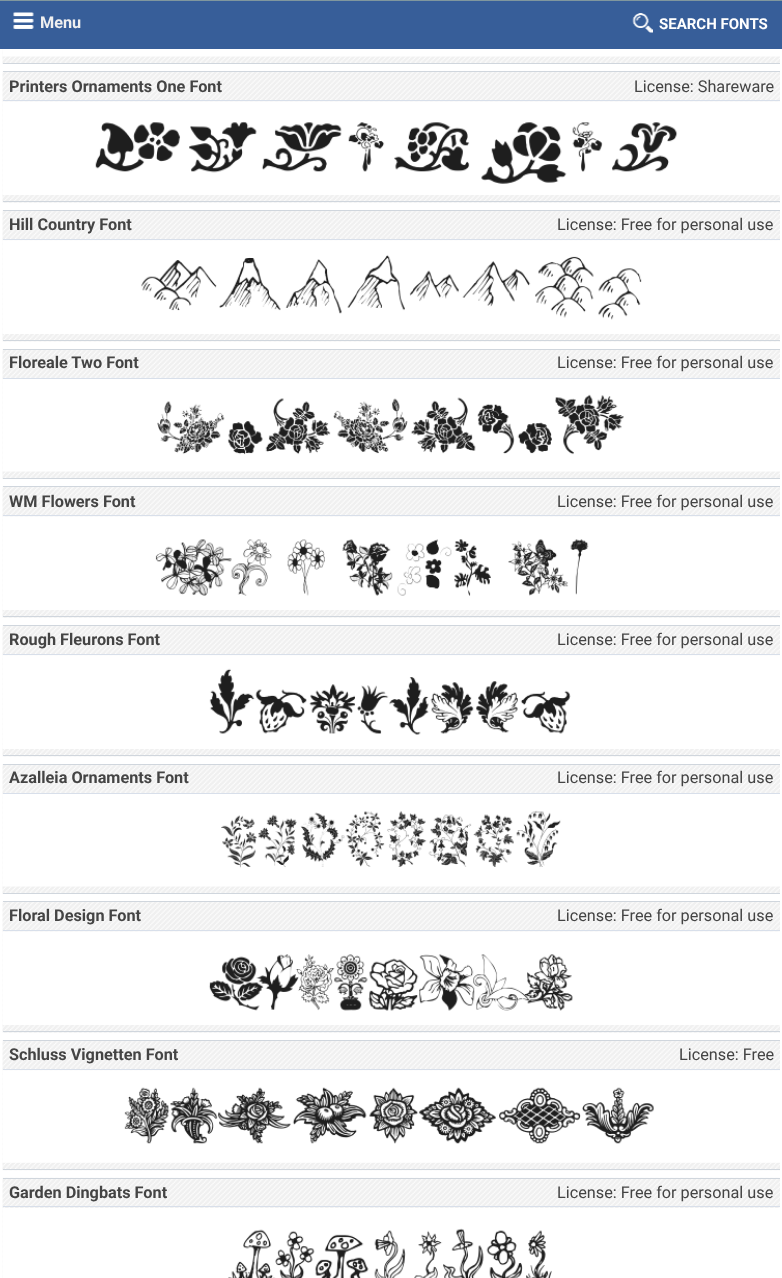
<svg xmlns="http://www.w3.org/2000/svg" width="782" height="1278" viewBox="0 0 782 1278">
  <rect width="100%" height="100%" fill="rgb(255,255,255)"/>
  <rect x="0" y="1" width="782" height="48" fill="rgb(55,94,153)"/>
  <rect x="0" y="0" width="782" height="1" fill="rgb(128,151,158)"/>
  <image x="13" y="12" width="21" height="17" href="pic1.png"/>
  <text x="40" y="28" font-family="Roboto" font-size="16.25" font-weight="bold" fill="rgb(240,240,240)">Menu</text>
  <image x="632" y="13" width="21" height="20" href="pic2.png"/>
  <text x="659" y="29" font-family="Roboto" font-size="15" font-weight="bold" fill="rgb(255,255,255)">SEARCH FONTS</text>
  <image x="2" y="49" width="778" height="15" href="pic3.png"/>
  <rect x="3" y="63" width="777" height="1" fill="rgb(208,214,221)"/>
  <image x="2" y="49" width="778" height="8" href="pic4.png"/>
  <image x="2" y="71" width="778" height="132" href="pic5.png"/>
  <rect x="3" y="71" width="777" height="1" fill="rgb(208,214,221)"/>
  <rect x="3" y="201" width="777" height="1" fill="rgb(208,214,221)"/>
  <text x="9" y="92" font-family="Roboto" font-size="16.25" font-weight="bold" fill="rgb(68,68,68)">Printers Ornaments One Font</text>
  <text x="634" y="92" font-family="Roboto" font-size="16.25" fill="rgb(68,68,68)">License: Shareware</text>
  <rect x="3" y="100" width="777" height="1" fill="rgb(216,223,234)"/>
  <image x="2" y="101" width="778" height="94" href="pic6.png"/>
  <image x="2" y="210" width="778" height="132" href="pic7.png"/>
  <rect x="3" y="210" width="777" height="1" fill="rgb(208,214,221)"/>
  <rect x="3" y="340" width="777" height="1" fill="rgb(208,214,221)"/>
  <text x="9" y="230" font-family="Roboto" font-size="16.25" font-weight="bold" fill="rgb(68,68,68)">Hill Country Font</text>
  <text x="557" y="230" font-family="Roboto" font-size="16.25" fill="rgb(68,68,68)">License: Free for personal use</text>
  <rect x="3" y="239" width="777" height="1" fill="rgb(216,223,234)"/>
  <image x="2" y="240" width="778" height="94" href="pic8.png"/>
  <image x="2" y="349" width="778" height="130" href="pic9.png"/>
  <rect x="3" y="349" width="777" height="1" fill="rgb(208,214,221)"/>
  <rect x="3" y="478" width="777" height="1" fill="rgb(208,214,221)"/>
  <text x="9" y="368" font-family="Roboto" font-size="16.25" font-weight="bold" fill="rgb(68,68,68)">Floreale Two Font</text>
  <text x="557" y="368" font-family="Roboto" font-size="16.25" fill="rgb(68,68,68)">License: Free for personal use</text>
  <rect x="3" y="378" width="777" height="1" fill="rgb(216,223,234)"/>
  <image x="2" y="379" width="778" height="93" href="pic10.png"/>
  <image x="2" y="486" width="778" height="132" href="pic11.png"/>
  <rect x="3" y="486" width="777" height="1" fill="rgb(208,214,221)"/>
  <rect x="3" y="616" width="777" height="1" fill="rgb(208,214,221)"/>
  <text x="9" y="507" font-family="Roboto" font-size="16.25" font-weight="bold" fill="rgb(68,68,68)">WM Flowers Font</text>
  <text x="557" y="507" font-family="Roboto" font-size="16.25" fill="rgb(68,68,68)">License: Free for personal use</text>
  <rect x="3" y="515" width="777" height="1" fill="rgb(216,223,234)"/>
  <image x="2" y="516" width="778" height="94" href="pic12.png"/>
  <image x="2" y="625" width="778" height="132" href="pic7.png"/>
  <rect x="3" y="625" width="777" height="1" fill="rgb(208,214,221)"/>
  <rect x="3" y="755" width="777" height="1" fill="rgb(208,214,221)"/>
  <text x="9" y="645" font-family="Roboto" font-size="16.25" font-weight="bold" fill="rgb(68,68,68)">Rough Fleurons Font</text>
  <text x="557" y="645" font-family="Roboto" font-size="16.25" fill="rgb(68,68,68)">License: Free for personal use</text>
  <rect x="3" y="654" width="777" height="1" fill="rgb(216,223,234)"/>
  <image x="2" y="655" width="778" height="94" href="pic13.png"/>
  <image x="2" y="764" width="778" height="130" href="pic9.png"/>
  <rect x="3" y="764" width="777" height="1" fill="rgb(208,214,221)"/>
  <rect x="3" y="893" width="777" height="1" fill="rgb(208,214,221)"/>
  <text x="9" y="783" font-family="Roboto" font-size="16.25" font-weight="bold" fill="rgb(68,68,68)">Azalleia Ornaments Font</text>
  <text x="557" y="783" font-family="Roboto" font-size="16.25" fill="rgb(68,68,68)">License: Free for personal use</text>
  <rect x="3" y="793" width="777" height="1" fill="rgb(216,223,234)"/>
  <image x="2" y="794" width="778" height="93" href="pic14.png"/>
  <image x="2" y="901" width="778" height="132" href="pic11.png"/>
  <rect x="3" y="901" width="777" height="1" fill="rgb(208,214,221)"/>
  <rect x="3" y="1031" width="777" height="1" fill="rgb(208,214,221)"/>
  <text x="9" y="921" font-family="Roboto" font-size="16.25" font-weight="bold" fill="rgb(68,68,68)">Floral Design Font</text>
  <text x="557" y="921" font-family="Roboto" font-size="16.25" fill="rgb(68,68,68)">License: Free for personal use</text>
  <rect x="3" y="930" width="777" height="1" fill="rgb(216,223,234)"/>
  <image x="2" y="931" width="778" height="94" href="pic15.png"/>
  <image x="2" y="1040" width="778" height="131" href="pic16.png"/>
  <rect x="3" y="1040" width="777" height="1" fill="rgb(208,214,221)"/>
  <rect x="3" y="1169" width="777" height="1" fill="rgb(208,214,221)"/>
  <text x="9" y="1060" font-family="Roboto" font-size="16.25" font-weight="bold" fill="rgb(68,68,68)">Schluss Vignetten Font</text>
  <text x="679" y="1060" font-family="Roboto" font-size="16.25" fill="rgb(68,68,68)">License: Free</text>
  <rect x="3" y="1069" width="777" height="1" fill="rgb(216,223,234)"/>
  <image x="2" y="1070" width="778" height="93" href="pic17.png"/>
  <image x="2" y="1177" width="778" height="101" href="pic18.png"/>
  <rect x="3" y="1178" width="777" height="1" fill="rgb(208,214,221)"/>
  <text x="9" y="1198" font-family="Roboto" font-size="16.25" font-weight="bold" fill="rgb(68,68,68)">Garden Dingbats Font</text>
  <text x="557" y="1198" font-family="Roboto" font-size="16.25" fill="rgb(68,68,68)">License: Free for personal use</text>
  <rect x="3" y="1206" width="777" height="1" fill="rgb(216,223,234)"/>
  <image x="2" y="1208" width="778" height="70" href="pic19.png"/>
</svg>
